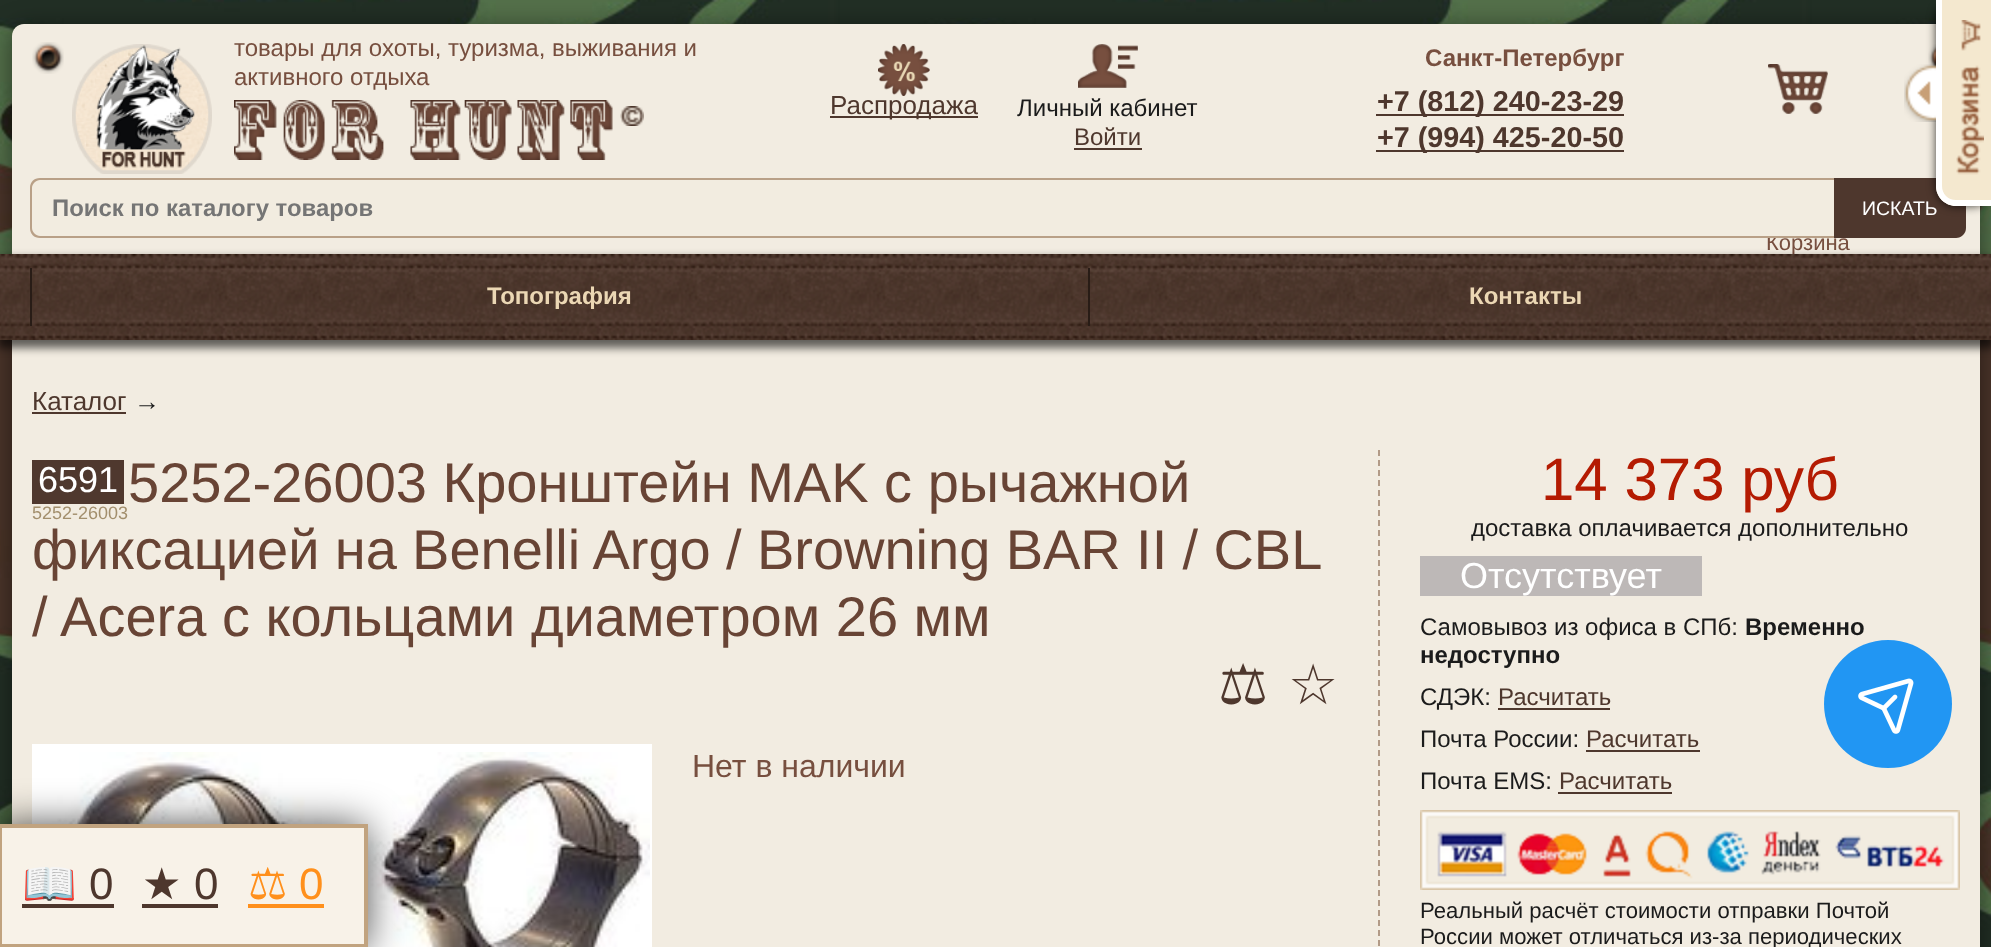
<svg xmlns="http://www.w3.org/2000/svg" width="1991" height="947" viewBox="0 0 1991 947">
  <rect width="100%" height="100%" fill="rgb(255,255,255)"/>
  <image x="0" y="0" width="1991" height="947" href="pic1.png"/>
  <rect x="12" y="28" width="1968" height="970" rx="12" fill="rgba(0,0,0,0.5)" filter="blur(13px)"/>
  <path d="M24 24H1968C1974.5 24 1980 29.5 1980 36V254H12V36C12 29.5 17.5 24 24 24Z" fill="rgb(242,236,225)"/>
  <image x="32" y="42" width="32" height="32" href="pic2.png"/>
  <image x="1928" y="44" width="8" height="25" href="pic3.png"/>
  <g font-family="Liberation Sans" font-size="24" fill="rgb(119,79,63)">
    <text>
      <tspan x="234" y="56">товары для охоты, туризма, выживания и</tspan>
      <tspan x="234" y="85">активного отдыха</tspan>
    </text>
  </g>
  <image x="234" y="100" width="379" height="60" href="pic4.png"/>
  <image x="620" y="106" width="24" height="20" href="pic5.png"/>
  <text x="1766" y="250" font-family="Liberation Sans" font-size="22" fill="rgb(119,79,63)">Корзина</text>
  <path d="M40 178H1834V238H40C34.5 238 30 233.5 30 228V188C30 182.5 34.5 178 40 178Z" fill="rgb(242,236,224)"/>
  <path d="M40 178H1834V238H40C34 238 30 234 30 228V188C30 182 34 178 40 178ZM40 180H1834V236H40C36 236 32 232 32 228V188C32 184 36 180 40 180Z" fill="rgb(185,160,135)" fill-rule="evenodd"/>
  <text x="52" y="216" font-family="Liberation Sans" font-size="23.9" font-weight="bold" fill="rgb(117,117,117)">Поиск по каталогу товаров</text>
  <path d="M1834 178H1956C1961.5 178 1966 182.5 1966 188V228C1966 233.5 1961.5 238 1956 238H1834Z" fill="rgb(78,55,45)"/>
  <text x="1862" y="215" font-family="Liberation Sans" font-size="19.5" fill="rgb(255,255,255)">ИСКАТЬ</text>
  <image x="72" y="44" width="140" height="130" href="pic6.png"/>
  <image x="878" y="44" width="52" height="52" href="pic7.png"/>
  <rect x="830" y="116" width="148" height="2" fill="rgb(78,55,45)"/>
  <text x="830" y="114" font-family="Liberation Sans" font-size="26" fill="rgb(78,55,45)">Распродажа</text>
  <image x="1078" y="44" width="60" height="44" href="pic8.png"/>
  <text x="1017" y="116" font-family="Liberation Sans" font-size="24" fill="rgb(27,27,27)">Личный кабинет</text>
  <text x="1074" y="145" font-family="Liberation Sans" font-size="24" fill="rgb(78,55,45)">Войти</text>
  <rect x="1074" y="148" width="68" height="2" fill="rgb(78,55,45)"/>
  <text x="1425" y="66" font-family="Liberation Sans" font-size="24" font-weight="bold" fill="rgb(119,79,63)">Санкт-Петербург</text>
  <rect x="1376" y="114" width="248" height="2" fill="rgb(78,55,45)"/>
  <text x="1377" y="111" font-family="Liberation Sans" font-size="28.75" font-weight="bold" fill="rgb(78,55,45)">+7 (812) 240-23-29</text>
  <rect x="1376" y="150" width="248" height="2" fill="rgb(78,55,45)"/>
  <text x="1377" y="147" font-family="Liberation Sans" font-size="28.75" font-weight="bold" fill="rgb(78,55,45)">+7 (994) 425-20-50</text>
  <image x="1768" y="64" width="60" height="50" href="pic9.png"/>
  <rect x="12" y="340" width="1968" height="607" fill="rgb(242,236,225)"/>
  <rect x="-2" y="258" width="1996" height="90" fill="rgba(0,0,0,0.6)" filter="blur(4px)"/>
  <image x="0" y="254" width="1991" height="86" href="pic10.png"/>
  <rect x="30" y="268" width="2" height="58" fill="rgb(40,28,22)"/>
  <text x="487" y="304" font-family="Liberation Sans" font-size="24" font-weight="bold" fill="rgb(235,215,180)">Топография</text>
  <rect x="1088" y="268" width="2" height="58" fill="rgb(40,28,22)"/>
  <text x="1469" y="304" font-family="Liberation Sans" font-size="24" font-weight="bold" fill="rgb(235,215,180)">Контакты</text>
  <rect x="1936" y="0" width="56" height="206" rx="20" fill="rgba(0,0,0,0.75)" filter="blur(5px)"/>
  <path d="M1936 0H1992V206H1956C1945 206 1936 197 1936 186Z" fill="rgb(244,232,207)"/>
  <image x="1956" y="20" width="28" height="155" href="pic11.png"/>
  <path d="M1936 0H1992V206H1956C1945 206 1936 197 1936 186ZM1942 0H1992V200H1956C1948 200 1942 194 1942 186Z" fill="rgb(255,255,255)" fill-rule="evenodd"/>
  <image x="1904" y="64" width="32" height="58" href="pic12.png"/>
  <text x="32" y="410" font-family="Liberation Sans" font-size="26" fill="rgb(78,55,45)">Каталог</text>
  <rect x="32" y="412" width="94" height="2" fill="rgb(78,55,45)"/>
  <text x="134" y="410" font-family="Liberation Sans" font-size="26" fill="rgb(27,27,27)">→</text>
  <rect x="32" y="460" width="92" height="44" fill="rgb(79,56,46)"/>
  <text x="38" y="492" font-family="Liberation Sans" font-size="36" fill="rgb(255,255,255)">6591</text>
  <text x="32" y="519" font-family="Liberation Sans" font-size="18" fill="rgb(163,143,109)">5252-26003</text>
  <g font-family="Liberation Sans" font-size="56" fill="rgb(104,68,53)">
    <text x="128" y="502">5252-26003 Кронштейн MAK с рычажной</text>
    <text>
      <tspan x="32" y="569" word-spacing="-0.25">фиксацией на Benelli Argo / Browning BAR II / CBL</tspan>
      <tspan x="32" y="636">/ Acera с кольцами диаметром 26 мм</tspan>
    </text>
  </g>
  <g font-family="DejaVu Sans" font-size="56" fill="rgb(78,55,45)">
    <text x="1218" y="704">⚖</text>
    <text x="1288" y="704">☆</text>
  </g>
  <rect x="32" y="744" width="620" height="203" fill="rgb(255,255,255)"/>
  <image x="36" y="752" width="614" height="195" href="pic13.png"/>
  <text x="692" y="777" font-family="Liberation Sans" font-size="32" fill="rgb(119,79,63)">Нет в наличии</text>
  <path d="M1379 450V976" fill="none" stroke="rgb(178,154,134)" stroke-width="2" stroke-dasharray="6 4"/>
  <text x="1541" y="500" font-family="Liberation Sans" font-size="60" fill="rgb(180,27,2)">14 373 руб</text>
  <text x="1471" y="536" font-family="Liberation Sans" font-size="24" fill="rgb(27,27,27)">доставка оплачивается дополнительно</text>
  <rect x="1420" y="556" width="282" height="40" fill="rgb(189,184,183)"/>
  <text x="1460" y="588" font-family="Liberation Sans" font-size="36" fill="rgb(255,255,255)">Отсутствует</text>
  <text x="1420" y="635" font-family="Liberation Sans" font-size="24" fill="rgb(27,27,27)">Самовывоз из офиса в СПб:</text>
  <g font-family="Liberation Sans" font-size="24" font-weight="bold" fill="rgb(27,27,27)">
    <text x="1745" y="635">Временно</text>
    <text x="1420" y="663">недоступно</text>
  </g>
  <text x="1420" y="705" font-family="Liberation Sans" font-size="24" fill="rgb(27,27,27)">СДЭК:</text>
  <text x="1498" y="705" font-family="Liberation Sans" font-size="24" fill="rgb(78,55,45)">Расчитать</text>
  <rect x="1498" y="708" width="112" height="2" fill="rgb(78,55,45)"/>
  <text x="1420" y="747" font-family="Liberation Sans" font-size="24" fill="rgb(27,27,27)">Почта России:</text>
  <text x="1586" y="747" font-family="Liberation Sans" font-size="24" fill="rgb(78,55,45)">Расчитать</text>
  <rect x="1586" y="750" width="114" height="2" fill="rgb(78,55,45)"/>
  <text x="1420" y="789" font-family="Liberation Sans" font-size="24" fill="rgb(27,27,27)">Почта EMS:</text>
  <text x="1559" y="789" font-family="Liberation Sans" font-size="24" fill="rgb(78,55,45)">Расчитать</text>
  <rect x="1558" y="792" width="114" height="2" fill="rgb(78,55,45)"/>
  <image x="1420" y="810" width="540" height="80" href="pic14.png"/>
  <g font-family="Liberation Sans" font-size="22.1" fill="rgb(27,27,27)">
    <text>
      <tspan x="1420" y="918">Реальный расчёт стоимости отправки Почтой</tspan>
      <tspan x="1420" y="944">России может отличаться из-за периодических</tspan>
    </text>
  </g>
  <rect x="-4" y="826" width="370" height="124" fill="rgba(0,0,0,0.75)" filter="blur(20px)"/>
  <rect x="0" y="826" width="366" height="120" fill="rgb(248,242,232)" stroke="rgb(193,163,127)" stroke-width="4"/>
  <rect x="22" y="904" width="92" height="4" fill="rgb(78,55,45)"/>
  <text x="22" y="899" font-family="Noto Color Emoji" font-size="44" fill="rgb(78,55,45)">📖</text>
  <text x="89" y="899" font-family="Liberation Sans" font-size="44" fill="rgb(78,55,45)">0</text>
  <text x="142" y="899" font-family="DejaVu Sans" font-size="44" fill="rgb(78,55,45)">★</text>
  <text x="194" y="899" font-family="Liberation Sans" font-size="44" fill="rgb(78,55,45)">0</text>
  <rect x="142" y="904" width="76" height="4" fill="rgb(78,55,45)"/>
  <text x="248" y="899" font-family="DejaVu Sans" font-size="44" fill="rgb(255,144,28)">⚖</text>
  <text x="299" y="899" font-family="Liberation Sans" font-size="44" fill="rgb(255,144,28)">0</text>
  <rect x="248" y="904" width="76" height="4" fill="rgb(255,144,28)"/>
  <circle cx="1888" cy="704" r="64" fill="rgb(33,150,243)"/>
  <image x="1858" y="678" width="56" height="56" href="pic15.png"/>
</svg>
